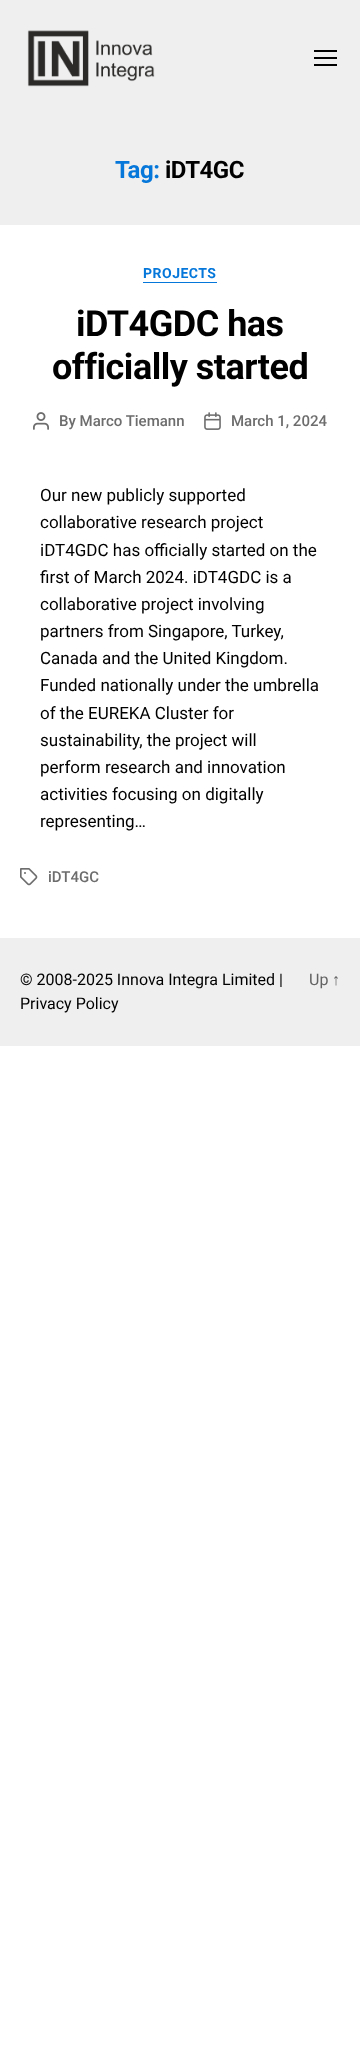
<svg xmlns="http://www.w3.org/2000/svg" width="360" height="2058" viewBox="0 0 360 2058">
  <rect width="100%" height="100%" fill="rgb(255,255,255)"/>
  <rect x="0" y="0" width="360" height="225" fill="rgb(239,239,239)"/>
  <image x="27" y="30" width="128" height="57" href="pic1.png"/>
  <rect x="314" y="50" width="23" height="2" fill="rgb(0,0,0)"/>
  <rect x="314" y="64" width="23" height="2" fill="rgb(0,0,0)"/>
  <rect x="314" y="57" width="23" height="2" fill="rgb(0,0,0)"/>
  <text x="115" y="178" font-family="Roboto" font-size="24" font-weight="bold" letter-spacing="-0.5" fill="rgb(5,119,218)">Tag:</text>
  <text x="165" y="178" font-family="Roboto" font-size="24" font-weight="bold" letter-spacing="-0.5" fill="rgb(0,0,0)">iDT4GC</text>
  <rect x="143" y="282" width="74" height="1" fill="rgb(5,119,218)"/>
  <text x="143" y="278" font-family="Roboto" font-size="14" font-weight="bold" letter-spacing="0.5" fill="rgb(5,119,218)">PROJECTS</text>
  <g font-family="Roboto" font-size="36" font-weight="bold" letter-spacing="-0.5" fill="rgb(0,0,0)">
    <text x="76" y="336">iDT4GDC has</text>
    <text x="52" y="379">officially started</text>
  </g>
  <image x="33" y="412" width="16" height="18" href="pic2.png"/>
  <text x="59" y="426" font-family="Roboto" font-size="15" font-weight="500" fill="rgb(109,109,109)">By Marco Tiemann</text>
  <image x="204" y="412" width="17" height="18" href="pic3.png"/>
  <text x="231" y="426" font-family="Roboto" font-size="15" font-weight="500" fill="rgb(109,109,109)">March 1, 2024</text>
  <g font-family="Roboto" font-size="17" fill="rgb(0,0,0)">
    <text>
      <tspan x="40" y="501">Our new publicly supported</tspan>
      <tspan x="40" y="528">collaborative research project</tspan>
      <tspan x="40" y="556">iDT4GDC has officially started on the</tspan>
      <tspan x="40" y="583">first of March 2024. iDT4GDC is a</tspan>
      <tspan x="40" y="610">collaborative project involving</tspan>
      <tspan x="40" y="637">partners from Singapore, Turkey,</tspan>
      <tspan x="40" y="664">Canada and the United Kingdom.</tspan>
      <tspan x="40" y="691">Funded nationally under the umbrella</tspan>
      <tspan x="40" y="719">of the EUREKA Cluster for</tspan>
      <tspan x="40" y="746">sustainability, the project will</tspan>
      <tspan x="40" y="773">perform research and innovation</tspan>
      <tspan x="40" y="800">activities focusing on digitally</tspan>
      <tspan x="40" y="827">representing…</tspan>
    </text>
  </g>
  <image x="20" y="868" width="18" height="18" href="pic4.png"/>
  <text x="48" y="882" font-family="Roboto" font-size="15" font-weight="500" fill="rgb(109,109,109)">iDT4GC</text>
  <rect x="0" y="938" width="360" height="108" fill="rgb(239,239,239)"/>
  <g font-family="Roboto" font-size="16" fill="rgb(0,0,0)">
    <text>
      <tspan x="20" y="985">© 2008-2025 Innova Integra Limited |</tspan>
      <tspan x="20" y="1009">Privacy Policy</tspan>
    </text>
  </g>
  <text x="309" y="985" font-family="Roboto" font-size="16" fill="rgb(99,99,99)">Up</text>
  <text x="332" y="985" font-family="Liberation Sans" font-size="16" fill="rgb(99,99,99)">↑</text>
</svg>
